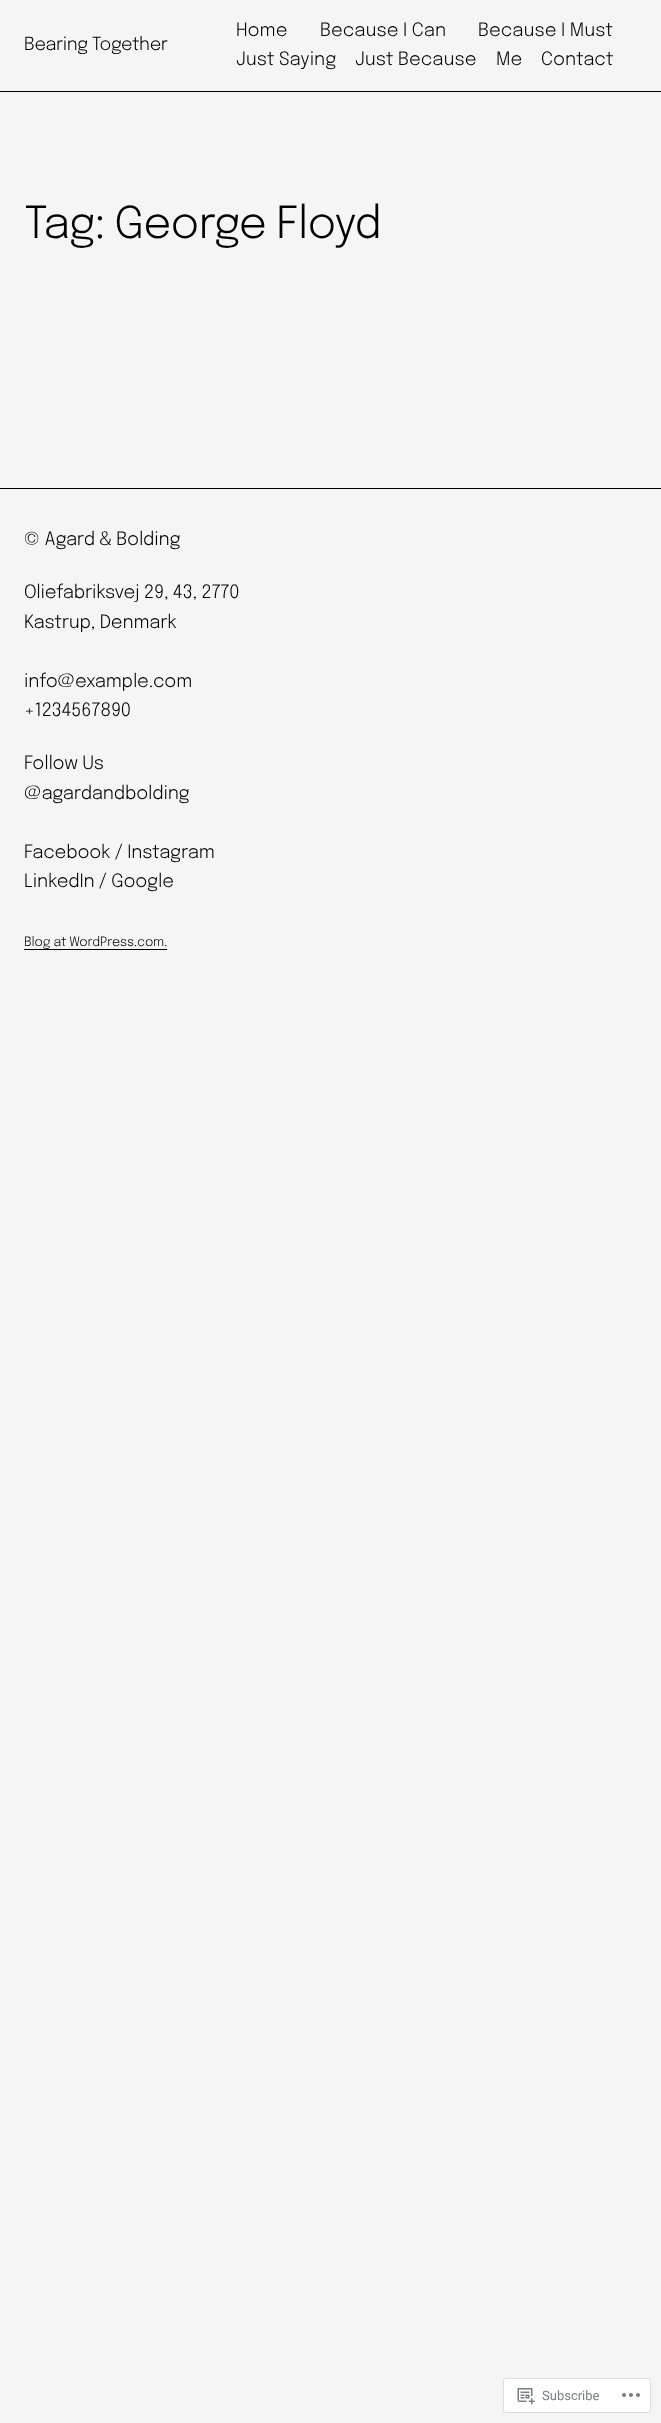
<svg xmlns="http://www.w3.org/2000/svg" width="661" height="2423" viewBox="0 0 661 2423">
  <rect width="100%" height="100%" fill="rgb(245,245,245)"/>
  <rect x="0" y="91" width="661" height="1" fill="rgb(0,0,0)"/>
  <text x="24" y="50" font-family="Epilogue" font-size="18" font-weight="300" letter-spacing="-0.4" fill="rgb(0,0,0)">Bearing Together</text>
  <g font-family="Epilogue" font-size="18.4" font-weight="300" fill="rgb(0,0,0)">
    <text x="236" y="36">Home</text>
    <text x="320" y="36">Because I Can</text>
    <text x="478" y="36">Because I Must</text>
    <text x="236" y="65">Just Saying</text>
    <text x="355" y="65">Just Because</text>
    <text x="496" y="65">Me</text>
    <text x="541" y="65">Contact</text>
  </g>
  <text x="24" y="238" font-family="Epilogue" font-size="44" font-weight="300" letter-spacing="-0.9" fill="rgb(0,0,0)">Tag: George Floyd</text>
  <rect x="0" y="488" width="661" height="1" fill="rgb(0,0,0)"/>
  <g font-family="Epilogue" font-size="18.4" font-weight="300" letter-spacing="-0.2" fill="rgb(0,0,0)">
    <text x="24" y="545">© Agard &amp; Bolding</text>
    <text>
      <tspan x="24" y="598">Oliefabriksvej 29, 43, 2770</tspan>
      <tspan x="24" y="628">Kastrup, Denmark</tspan>
    </text>
    <text>
      <tspan x="24" y="687">info@example.com</tspan>
      <tspan x="24" y="716">+1234567890</tspan>
    </text>
    <text>
      <tspan x="24" y="769">Follow Us</tspan>
      <tspan x="24" y="799">@agardandbolding</tspan>
    </text>
    <text>
      <tspan x="24" y="858">Facebook / Instagram</tspan>
      <tspan x="24" y="887">LinkedIn / Google</tspan>
    </text>
  </g>
  <text x="24" y="946" font-family="Epilogue" font-size="12.75" font-weight="300" letter-spacing="-0.1" fill="rgb(0,0,0)">Blog at WordPress.com.</text>
  <rect x="24" y="949" width="143" height="1" fill="rgb(0,0,0)"/>
  <rect x="503.5" y="2378.5" width="147" height="34" rx="2.5" fill="rgb(255,255,255)" stroke="rgb(221,221,222)"/>
  <image x="517" y="2388" width="18" height="17" href="pic1.png"/>
  <text x="542" y="2400" font-family="Roboto" font-size="13" fill="rgb(123,126,132)">Subscribe</text>
  <image x="622" y="2393" width="18" height="4" href="pic2.png"/>
</svg>
